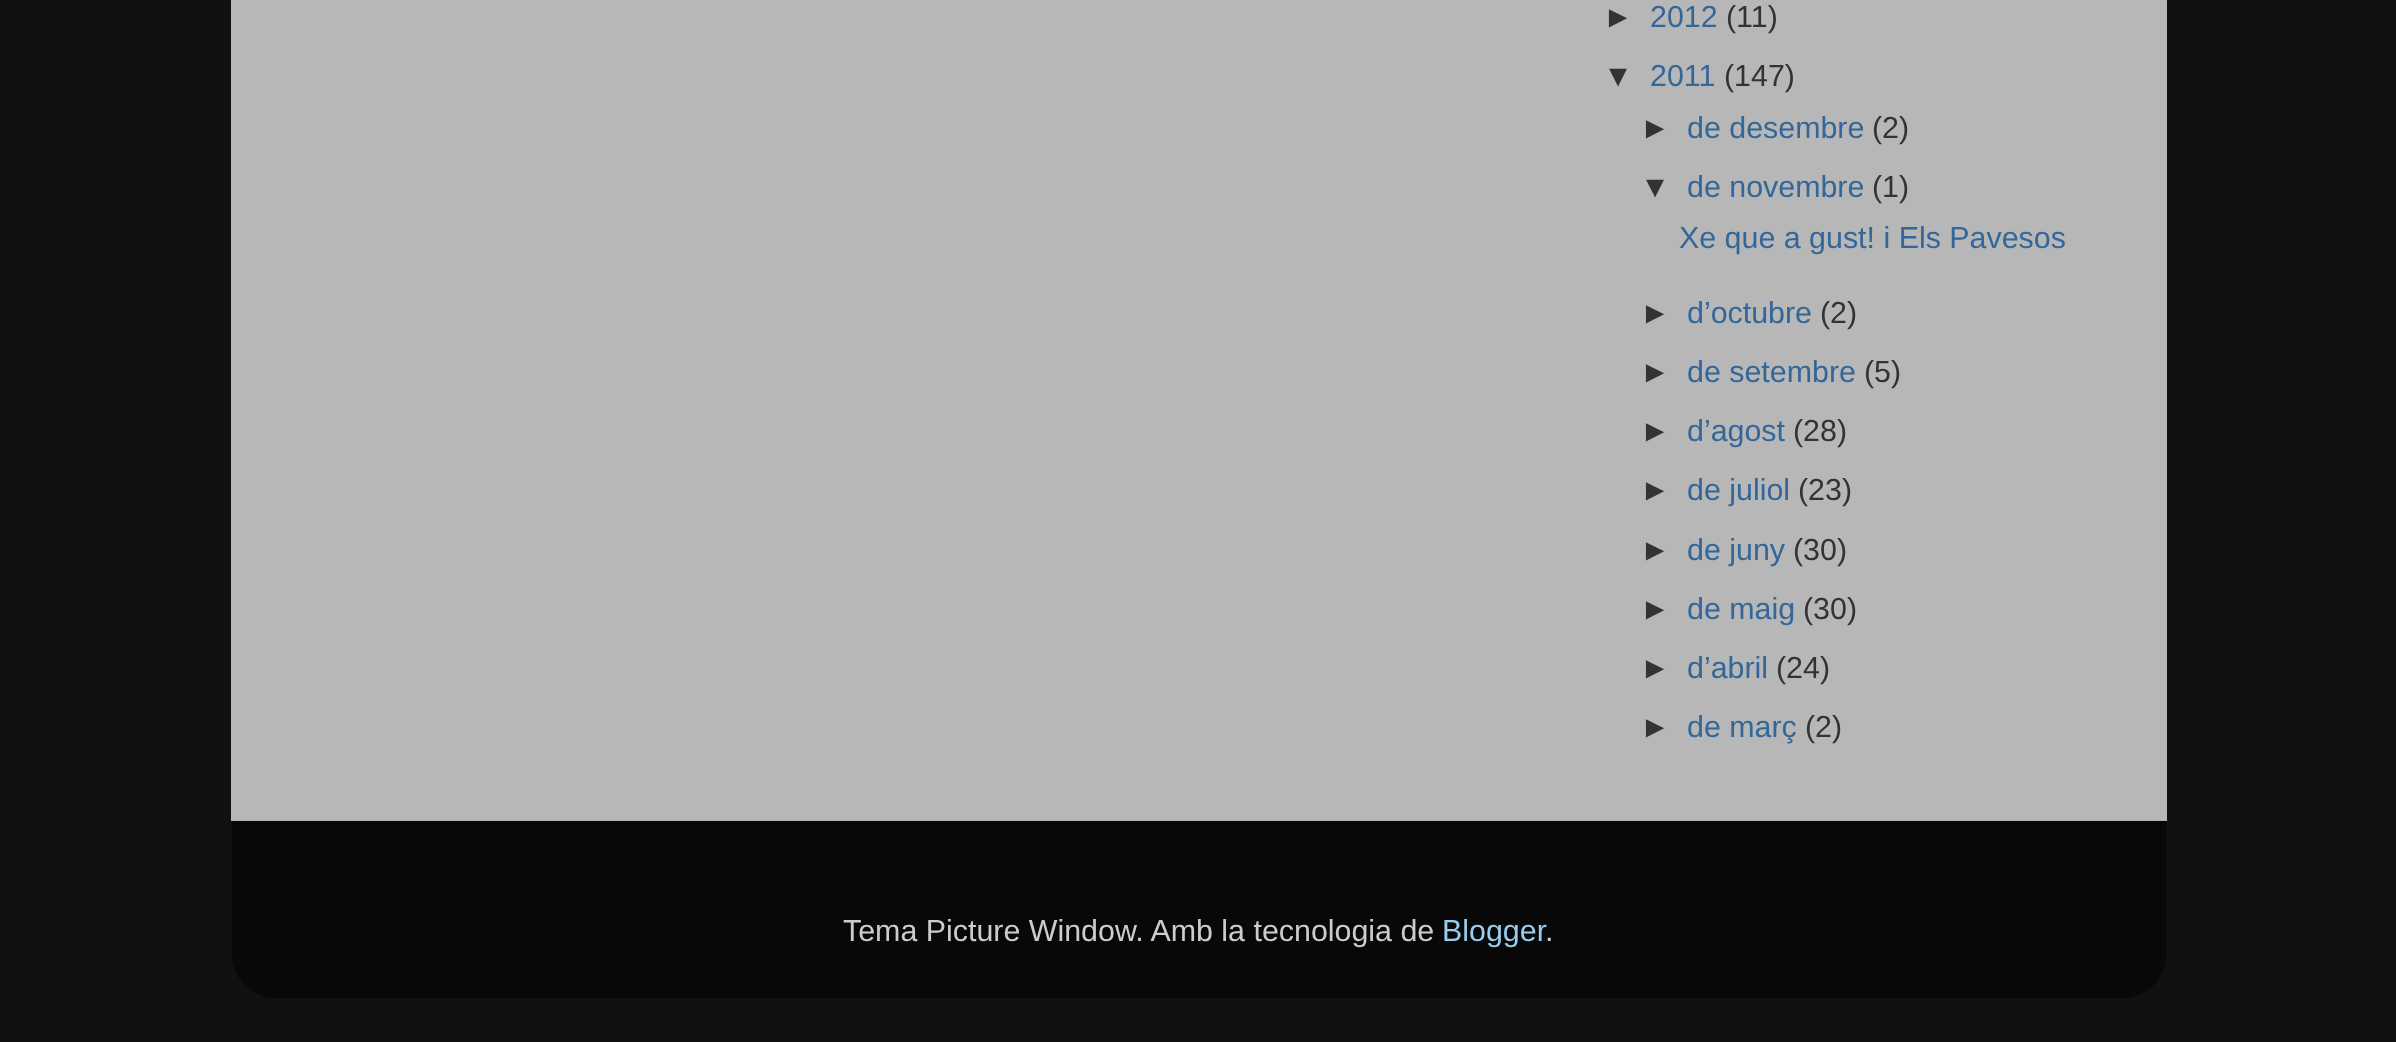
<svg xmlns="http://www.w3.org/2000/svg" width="2396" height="1042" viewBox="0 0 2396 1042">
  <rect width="100%" height="100%" fill="rgb(17,17,17)"/>
  <rect x="231" y="0" width="1936" height="821" fill="rgb(183,183,183)"/>
  <text x="1603" y="27" font-family="Liberation Sans" font-size="30.4" fill="rgb(51,51,51)">►</text>
  <text x="1650" y="27" font-family="Liberation Sans" font-size="30.4" fill="rgb(51,102,153)">2012</text>
  <g font-family="Liberation Sans" font-size="30.4" fill="rgb(51,51,51)">
    <text x="1726" y="27">(11)</text>
    <text x="1603" y="86">▼</text>
  </g>
  <text x="1650" y="86" font-family="Liberation Sans" font-size="30.4" fill="rgb(51,102,153)">2011</text>
  <g font-family="Liberation Sans" font-size="30.4" fill="rgb(51,51,51)">
    <text x="1724" y="86">(147)</text>
    <text x="1640" y="138">►</text>
  </g>
  <text x="1687" y="138" font-family="Liberation Sans" font-size="30.4" fill="rgb(51,102,153)">de desembre</text>
  <g font-family="Liberation Sans" font-size="30.4" fill="rgb(51,51,51)">
    <text x="1872" y="138">(2)</text>
    <text x="1640" y="197">▼</text>
  </g>
  <text x="1687" y="197" font-family="Liberation Sans" font-size="30.4" fill="rgb(51,102,153)">de novembre</text>
  <text x="1872" y="197" font-family="Liberation Sans" font-size="30.4" fill="rgb(51,51,51)">(1)</text>
  <text x="1679" y="248" font-family="Liberation Sans" font-size="30.4" fill="rgb(51,102,153)">Xe que a gust! i Els Pavesos</text>
  <text x="1640" y="323" font-family="Liberation Sans" font-size="30.4" fill="rgb(51,51,51)">►</text>
  <text x="1687" y="323" font-family="Liberation Sans" font-size="30.4" fill="rgb(51,102,153)">d’octubre</text>
  <g font-family="Liberation Sans" font-size="30.4" fill="rgb(51,51,51)">
    <text x="1820" y="323">(2)</text>
    <text x="1640" y="382">►</text>
  </g>
  <text x="1687" y="382" font-family="Liberation Sans" font-size="30.4" fill="rgb(51,102,153)">de setembre</text>
  <g font-family="Liberation Sans" font-size="30.4" fill="rgb(51,51,51)">
    <text x="1864" y="382">(5)</text>
    <text x="1640" y="441">►</text>
  </g>
  <text x="1687" y="441" font-family="Liberation Sans" font-size="30.4" fill="rgb(51,102,153)">d’agost</text>
  <g font-family="Liberation Sans" font-size="30.4" fill="rgb(51,51,51)">
    <text x="1793" y="441">(28)</text>
    <text x="1640" y="500">►</text>
  </g>
  <text x="1687" y="500" font-family="Liberation Sans" font-size="30.4" fill="rgb(51,102,153)">de juliol</text>
  <g font-family="Liberation Sans" font-size="30.4" fill="rgb(51,51,51)">
    <text x="1798" y="500">(23)</text>
    <text x="1640" y="560">►</text>
  </g>
  <text x="1687" y="560" font-family="Liberation Sans" font-size="30.4" fill="rgb(51,102,153)">de juny</text>
  <g font-family="Liberation Sans" font-size="30.4" fill="rgb(51,51,51)">
    <text x="1793" y="560">(30)</text>
    <text x="1640" y="619">►</text>
  </g>
  <text x="1687" y="619" font-family="Liberation Sans" font-size="30.4" fill="rgb(51,102,153)">de maig</text>
  <g font-family="Liberation Sans" font-size="30.4" fill="rgb(51,51,51)">
    <text x="1803" y="619">(30)</text>
    <text x="1640" y="678">►</text>
  </g>
  <text x="1687" y="678" font-family="Liberation Sans" font-size="30.4" fill="rgb(51,102,153)">d’abril</text>
  <g font-family="Liberation Sans" font-size="30.4" fill="rgb(51,51,51)">
    <text x="1776" y="678">(24)</text>
    <text x="1640" y="737">►</text>
  </g>
  <text x="1687" y="737" font-family="Liberation Sans" font-size="30.4" fill="rgb(51,102,153)">de març</text>
  <text x="1805" y="737" font-family="Liberation Sans" font-size="30.4" fill="rgb(51,51,51)">(2)</text>
  <image x="232" y="820" width="1935" height="178" href="pic1.png"/>
  <text x="843" y="941" font-family="Liberation Sans" font-size="30.4" fill="rgb(204,204,204)">Tema Picture Window. Amb la tecnologia de</text>
  <text x="1442" y="941" font-family="Liberation Sans" font-size="30.4" fill="rgb(153,204,238)">Blogger</text>
  <text x="1545" y="941" font-family="Liberation Sans" font-size="30.4" fill="rgb(204,204,204)">.</text>
</svg>
